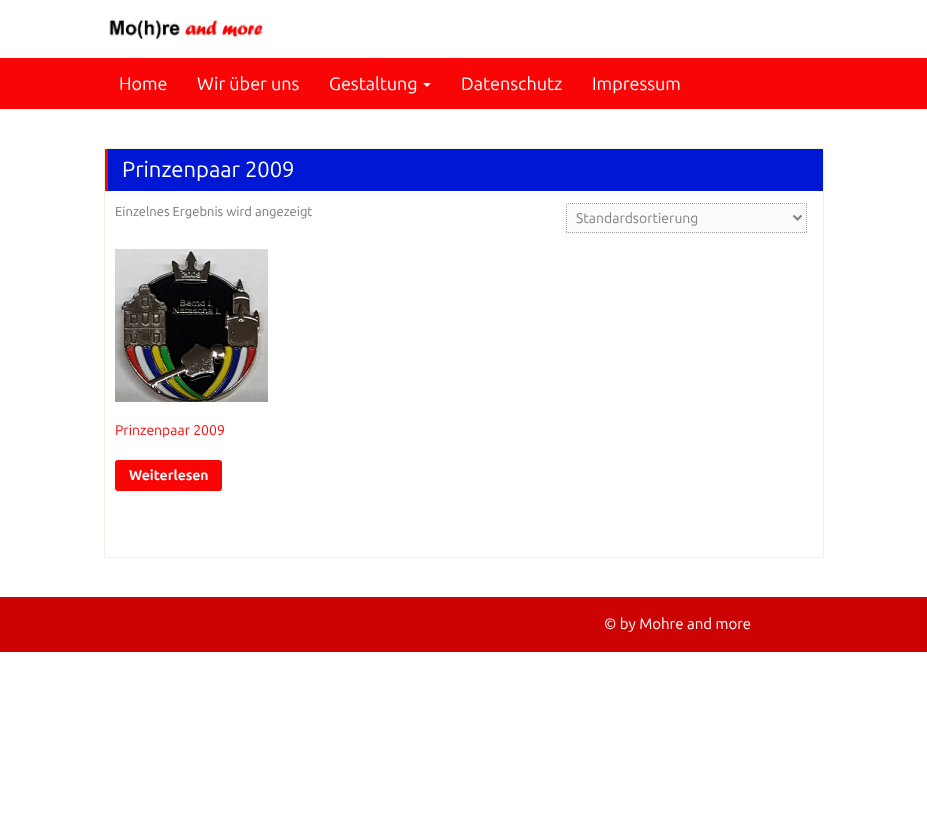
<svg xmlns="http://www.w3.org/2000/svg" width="927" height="815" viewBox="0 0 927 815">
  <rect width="100%" height="100%" fill="rgb(255,255,255)"/>
  <image x="109" y="19" width="155" height="21" href="pic1.png"/>
  <rect x="0" y="58" width="927" height="51" fill="rgb(249,5,5)"/>
  <g font-family="Ubuntu" font-size="18" fill="rgb(255,255,255)">
    <text x="119" y="90">Home</text>
    <text x="197" y="90">Wir über uns</text>
    <text x="329" y="90">Gestaltung</text>
  </g>
  <path d="M423 83H431L427 87Z" fill="rgb(255,255,255)"/>
  <g font-family="Ubuntu" font-size="18" fill="rgb(255,255,255)">
    <text x="461" y="90">Datenschutz</text>
    <text x="592" y="90">Impressum</text>
  </g>
  <rect x="104.5" y="148.5" width="719" height="409" fill="none" stroke="rgb(237,245,226)"/>
  <rect x="108" y="149" width="715" height="42" fill="rgb(0,24,211)"/>
  <rect x="105" y="149" width="3" height="42" fill="rgb(249,5,5)"/>
  <text x="122" y="177" font-family="Ubuntu" font-size="22" fill="rgb(255,255,255)">Prinzenpaar 2009</text>
  <text x="115" y="216" font-family="Ubuntu" font-size="13" fill="rgb(118,118,118)">Einzelnes Ergebnis wird angezeigt</text>
  <rect x="566" y="203" width="241" height="30" fill="rgb(251,251,251)"/>
  <path d="M566 203.5H807" fill="none" stroke="rgb(167,167,167)" stroke-dasharray="1 1"/>
  <path d="M806.5 203V233" fill="none" stroke="rgb(167,167,167)" stroke-dasharray="1 1"/>
  <path d="M566 232.5H807" fill="none" stroke="rgb(167,167,167)" stroke-dasharray="1 1"/>
  <path d="M566.5 203V233" fill="none" stroke="rgb(167,167,167)" stroke-dasharray="1 1"/>
  <path d="M793.5 215.5L797.5 219.5L801.5 215.5" fill="none" stroke="rgb(130,130,130)" stroke-width="2"/>
  <text x="576" y="223" font-family="Ubuntu" font-size="14" fill="rgb(130,130,130)">Standardsortierung</text>
  <image x="115" y="249" width="153" height="153" href="pic2.png"/>
  <text x="115" y="435" font-family="Ubuntu" font-size="14" fill="rgb(249,5,5)">Prinzenpaar 2009</text>
  <rect x="115" y="460" width="107" height="31" rx="3" fill="rgb(249,5,5)"/>
  <text x="129" y="480" font-family="Ubuntu" font-size="14" font-weight="bold" fill="rgb(255,255,255)">Weiterlesen</text>
  <rect x="0" y="597" width="927" height="55" fill="rgb(205,3,3)"/>
  <text x="604" y="629" font-family="Ubuntu" font-size="15" fill="rgb(255,255,255)">© by Mohre and more</text>
</svg>
